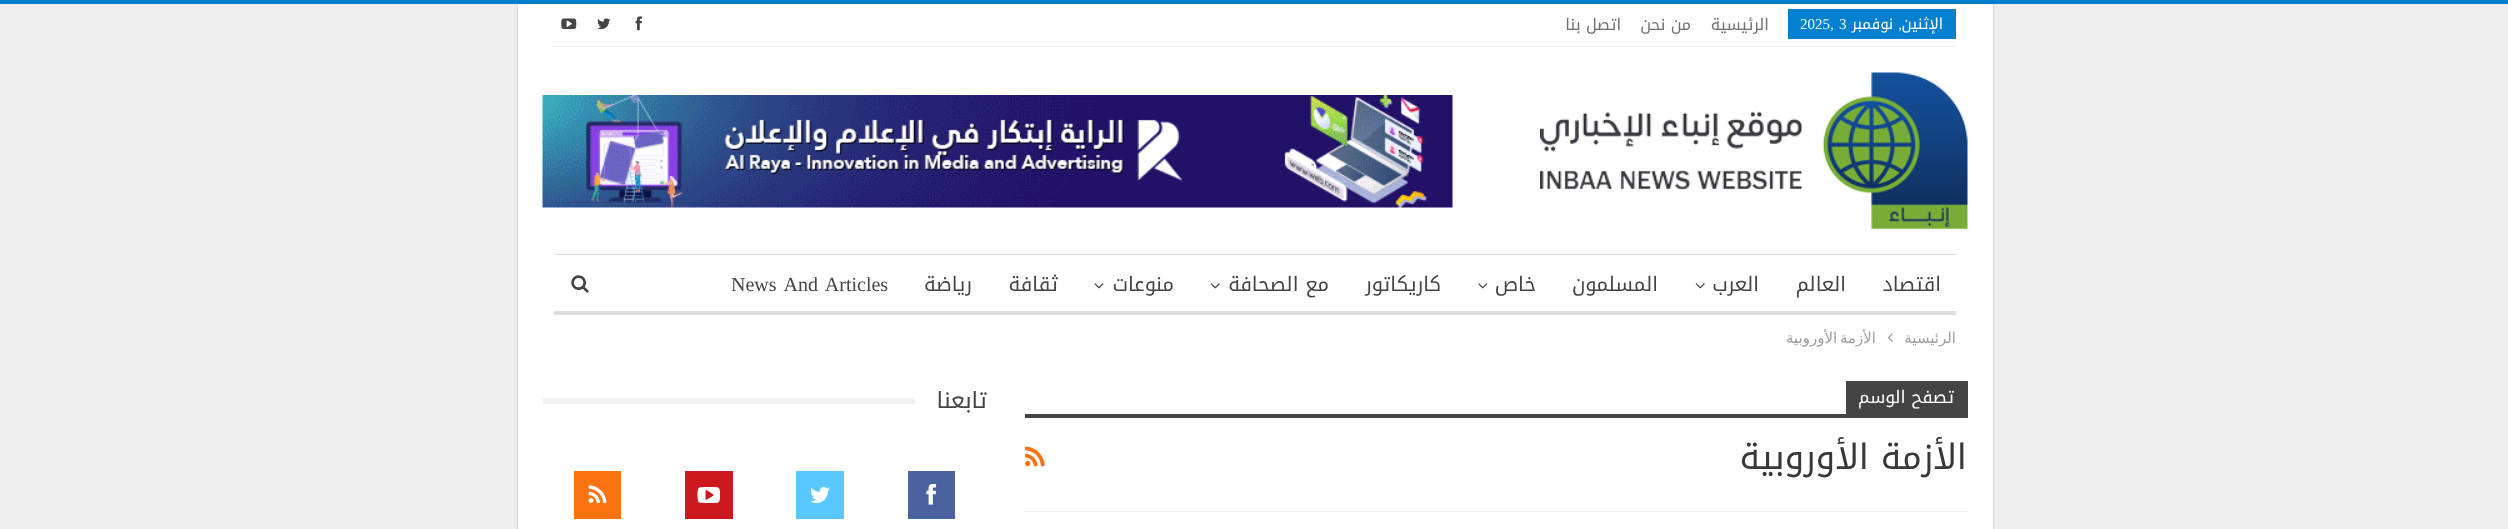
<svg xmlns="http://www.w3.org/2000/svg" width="2508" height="529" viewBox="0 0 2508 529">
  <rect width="100%" height="100%" fill="rgb(238,238,238)"/>
  <rect x="0" y="0" width="2508" height="4" fill="rgb(0,128,206)"/>
  <rect x="518" y="4" width="1475" height="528" fill="rgba(0,0,0,0.27)" filter="blur(1px)"/>
  <rect x="518" y="4" width="1475" height="525" fill="rgb(255,255,255)"/>
  <rect x="554" y="46" width="1402" height="1" fill="rgb(239,239,239)"/>
  <rect x="1788" y="9" width="168" height="30" fill="rgb(0,128,206)"/>
  <text x="1943" y="29" font-family="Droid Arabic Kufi" font-size="15" direction="rtl" fill="rgb(255,255,255)">الإثنين</text>
  <text x="1902" y="29" font-family="Liberation Serif" font-size="15" direction="rtl" fill="rgb(255,255,255)">,</text>
  <text x="1893" y="29" font-family="Droid Arabic Kufi" font-size="15" direction="rtl" fill="rgb(255,255,255)">نوفمبر</text>
  <g font-family="Liberation Serif" font-size="15" fill="rgb(255,255,255)">
    <text x="1839" y="29">3</text>
    <text x="1800" y="29">2025,</text>
  </g>
  <g font-family="Droid Arabic Kufi" font-size="16" direction="rtl" fill="rgb(112,112,112)">
    <text x="1769" y="30">الرئيسية</text>
    <text x="1691" y="30">من نحن</text>
    <text x="1621" y="30">اتصل بنا</text>
  </g>
  <image x="635" y="16" width="7" height="15" href="pic1.png"/>
  <image x="597" y="18" width="14" height="12" href="pic2.png"/>
  <image x="561" y="18" width="16" height="12" href="pic3.png"/>
  <image x="1540" y="72" width="428" height="157" href="pic4.png"/>
  <image x="542" y="95" width="911" height="113" href="pic5.png"/>
  <rect x="554" y="254" width="1402" height="1" fill="rgb(222,222,222)"/>
  <rect x="554" y="311" width="1402" height="4" fill="rgb(222,222,222)"/>
  <g font-family="Droid Arabic Kufi" font-size="20" direction="rtl" fill="rgb(68,68,68)">
    <text x="1941" y="291">اقتصاد</text>
    <text x="1846" y="291">العالم</text>
    <text x="1759" y="291">العرب</text>
  </g>
  <image x="1695" y="283" width="10" height="6" href="pic6.png"/>
  <g font-family="Droid Arabic Kufi" font-size="20" direction="rtl" fill="rgb(68,68,68)">
    <text x="1658" y="291">المسلمون</text>
    <text x="1536" y="291">خاص</text>
  </g>
  <image x="1478" y="283" width="10" height="6" href="pic7.png"/>
  <g font-family="Droid Arabic Kufi" font-size="20" direction="rtl" fill="rgb(68,68,68)">
    <text x="1441" y="291">كاريكاتور</text>
    <text x="1329" y="291">مع الصحافة</text>
  </g>
  <image x="1210" y="283" width="10" height="6" href="pic6.png"/>
  <text x="1174" y="291" font-family="Droid Arabic Kufi" font-size="20" direction="rtl" fill="rgb(68,68,68)">منوعات</text>
  <image x="1094" y="283" width="10" height="6" href="pic8.png"/>
  <g font-family="Droid Arabic Kufi" font-size="20" direction="rtl" fill="rgb(68,68,68)">
    <text x="1058" y="291">ثقافة</text>
    <text x="972" y="291">رياضة</text>
  </g>
  <text x="731" y="291" word-spacing="3" font-family="Liberation Serif" font-size="20" fill="rgb(68,68,68)">News And Articles</text>
  <image x="571" y="275" width="18" height="18" href="pic9.png"/>
  <text x="1956" y="343" font-family="DejaVu Sans" font-size="15" direction="rtl" fill="rgb(158,158,158)">الرئيسية</text>
  <image x="1888" y="333" width="5" height="9" href="pic10.png"/>
  <text x="1876" y="343" word-spacing="-2" font-family="DejaVu Sans" font-size="15" direction="rtl" fill="rgb(158,158,158)">الأزمة الأوروبية</text>
  <rect x="1025" y="511" width="943" height="1" fill="rgb(240,240,240)"/>
  <rect x="1846" y="381" width="122" height="33" fill="rgb(68,68,68)"/>
  <text x="1954" y="403" font-family="Droid Arabic Kufi" font-size="17.5" direction="rtl" fill="rgb(255,255,255)">تصفح الوسم</text>
  <rect x="1025" y="414" width="943" height="4" fill="rgb(68,68,68)"/>
  <text x="1967" y="469" font-family="Droid Arabic Kufi" font-size="35" direction="rtl" fill="rgb(56,56,56)">الأزمة الأوروبية</text>
  <image x="1025" y="446" width="20" height="21" href="pic11.png"/>
  <text x="987" y="408" font-family="Droid Arabic Kufi" font-size="22.5" direction="rtl" fill="rgb(68,68,68)">تابعنا</text>
  <rect x="543" y="398" width="372" height="6" fill="rgb(242,242,242)"/>
  <rect x="908" y="471" width="47" height="48" fill="rgb(74,99,159)"/>
  <image x="926" y="484" width="11" height="21" href="pic12.png"/>
  <rect x="796" y="471" width="48" height="48" fill="rgb(89,200,255)"/>
  <image x="810" y="487" width="20" height="16" href="pic13.png"/>
  <rect x="685" y="471" width="48" height="48" fill="rgb(204,24,30)"/>
  <image x="697" y="486" width="23" height="18" href="pic14.png"/>
  <rect x="574" y="471" width="47" height="48" fill="rgb(249,116,16)"/>
  <image x="588" y="485" width="19" height="19" href="pic15.png"/>
</svg>
